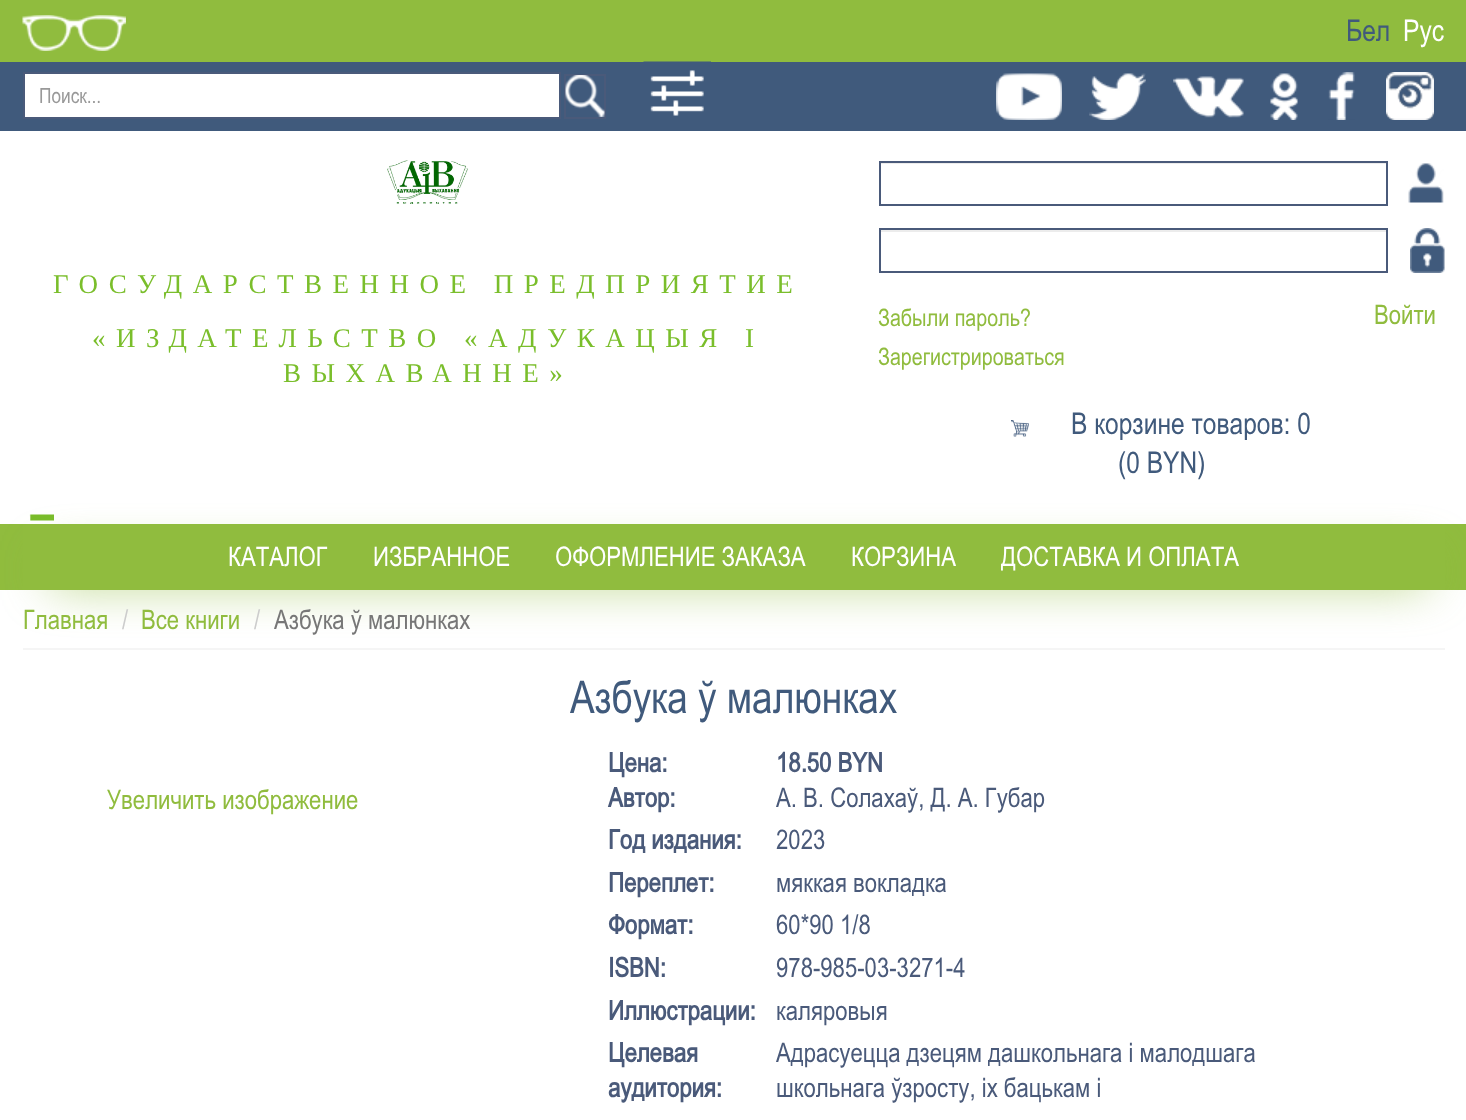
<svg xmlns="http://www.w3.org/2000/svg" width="1466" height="1120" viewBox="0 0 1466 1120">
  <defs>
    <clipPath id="clip1"><path d="M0 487H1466V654H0ZM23 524H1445V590H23Z" clip-rule="evenodd"/></clipPath>
  </defs>
  <rect width="100%" height="100%" fill="rgb(255,255,255)"/>
  <rect x="0" y="0" width="1466" height="62" fill="rgb(144,188,62)"/>
  <image x="22" y="15" width="104" height="36" href="pic1.png"/>
  <text x="1346" y="41" font-family="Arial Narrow" font-size="30" fill="rgb(64,90,124)">Бел</text>
  <text x="1403" y="41" font-family="Arial Narrow" font-size="30" fill="rgb(255,255,255)">Рус</text>
  <rect x="0" y="62" width="1466" height="69" fill="rgb(64,90,124)"/>
  <rect x="24" y="73" width="536" height="45" fill="rgb(255,255,255)" stroke="rgb(74,90,122)" stroke-width="2"/>
  <text x="39" y="103" font-family="Arial Narrow" font-size="21" fill="rgb(153,153,153)">Поиск...</text>
  <rect x="565" y="75" width="40" height="43" fill="none" stroke="rgb(74,90,122)" stroke-width="2"/>
  <image x="565" y="75" width="40" height="42" href="pic2.png"/>
  <image x="643" y="61" width="68" height="55" href="pic3.png"/>
  <image x="996" y="73" width="66" height="47" href="pic4.png"/>
  <image x="1089" y="73" width="57" height="47" href="pic5.png"/>
  <image x="1173" y="76" width="71" height="42" href="pic6.png"/>
  <image x="1270" y="73" width="28" height="47" href="pic7.png"/>
  <image x="1328" y="72" width="27" height="48" href="pic8.png"/>
  <image x="1386" y="72" width="48" height="48" href="pic9.png"/>
  <image x="387" y="160" width="81" height="44" href="pic10.png"/>
  <g font-family="Liberation Serif" font-size="27" letter-spacing="10.5" fill="rgb(122,190,43)">
    <text x="53" y="293">ГОСУДАРСТВЕННОЕ ПРЕДПРИЯТИЕ</text>
    <text x="92" y="347">«ИЗДАТЕЛЬСТВО «АДУКАЦЫЯ I</text>
    <text x="283" y="382">ВЫХАВАННЕ»</text>
  </g>
  <image x="1408" y="163" width="36" height="40" href="pic11.png"/>
  <rect x="881" y="163" width="505" height="1" fill="rgb(236,236,236)"/>
  <rect x="880" y="162" width="507" height="43" fill="none" stroke="rgb(74,90,122)" stroke-width="2"/>
  <image x="1410" y="228" width="35" height="45" href="pic12.png"/>
  <rect x="881" y="230" width="505" height="2" fill="rgb(236,236,236)"/>
  <rect x="880" y="229" width="507" height="43" fill="none" stroke="rgb(74,90,122)" stroke-width="2"/>
  <text x="878" y="326" font-family="Arial Narrow" font-size="24" fill="rgb(144,188,62)">Забыли пароль?</text>
  <text x="1374" y="324" font-family="Arial Narrow" font-size="27" fill="rgb(144,188,62)">Войти</text>
  <text x="878" y="365" font-family="Arial Narrow" font-size="24" fill="rgb(144,188,62)">Зарегистрироваться</text>
  <image x="1011" y="420" width="18" height="17" href="pic13.png"/>
  <g font-family="Arial Narrow" font-size="30" fill="rgb(64,90,124)">
    <text x="1071" y="434">В корзине товаров: 0</text>
    <text x="1118" y="473">(0 BYN)</text>
  </g>
  <image x="29" y="514" width="25" height="7" href="pic14.png"/>
  <rect x="0" y="524" width="1466" height="66" fill="rgb(144,188,62)"/>
  <rect x="23" y="648" width="1422" height="2" fill="rgb(245,245,245)"/>
  <g clip-path="url(#clip1)">
    <rect x="50" y="560" width="1377" height="21" fill="rgb(144,188,62)" filter="blur(24px)"/>
  </g>
  <g font-family="Arial Narrow" font-size="27" fill="rgb(255,255,255)">
    <text x="228" y="566">КАТАЛОГ</text>
    <text x="373" y="566">ИЗБРАННОЕ</text>
    <text x="555" y="566">ОФОРМЛЕНИЕ ЗАКАЗА</text>
    <text x="851" y="566">КОРЗИНА</text>
    <text x="1001" y="566">ДОСТАВКА И ОПЛАТА</text>
  </g>
  <text x="23" y="629" font-family="Arial Narrow" font-size="27" fill="rgb(144,188,62)">Главная</text>
  <text x="122" y="629" font-family="Arial Narrow" font-size="27" fill="rgb(204,204,204)">/</text>
  <text x="141" y="629" font-family="Arial Narrow" font-size="27" fill="rgb(144,188,62)">Все книги</text>
  <text x="254" y="629" font-family="Arial Narrow" font-size="27" fill="rgb(204,204,204)">/</text>
  <text x="274" y="629" font-family="Arial Narrow" font-size="27" fill="rgb(119,119,119)">Азбука ў малюнках</text>
  <text x="570" y="713" font-family="Arial Narrow" font-size="45" fill="rgb(64,90,124)">Азбука ў малюнках</text>
  <text x="107" y="809" font-family="Arial Narrow" font-size="27" fill="rgb(144,188,62)">Увеличить изображение</text>
  <g font-family="Arial Narrow" font-size="27" font-weight="bold" fill="rgb(74,90,122)">
    <text x="608" y="772">Цена:</text>
    <text x="776" y="772">18.50 BYN</text>
    <text x="608" y="807">Автор:</text>
  </g>
  <text x="776" y="807" font-family="Arial Narrow" font-size="27" fill="rgb(74,90,122)">А. В. Солахаў, Д. А. Губар</text>
  <text x="608" y="849" font-family="Arial Narrow" font-size="27" font-weight="bold" fill="rgb(74,90,122)">Год издания:</text>
  <text x="776" y="849" font-family="Arial Narrow" font-size="27" fill="rgb(74,90,122)">2023</text>
  <text x="608" y="892" font-family="Arial Narrow" font-size="27" font-weight="bold" fill="rgb(74,90,122)">Переплет:</text>
  <text x="776" y="892" font-family="Arial Narrow" font-size="27" fill="rgb(74,90,122)">мяккая вокладка</text>
  <text x="608" y="934" font-family="Arial Narrow" font-size="27" font-weight="bold" fill="rgb(74,90,122)">Формат:</text>
  <text x="776" y="934" font-family="Arial Narrow" font-size="27" fill="rgb(74,90,122)">60*90 1/8</text>
  <text x="608" y="977" font-family="Arial Narrow" font-size="27" font-weight="bold" fill="rgb(74,90,122)">ISBN:</text>
  <text x="776" y="977" font-family="Arial Narrow" font-size="27" fill="rgb(74,90,122)">978-985-03-3271-4</text>
  <text x="608" y="1020" font-family="Arial Narrow" font-size="27" font-weight="bold" fill="rgb(74,90,122)">Иллюстрации:</text>
  <text x="776" y="1020" font-family="Arial Narrow" font-size="27" fill="rgb(74,90,122)">каляровыя</text>
  <g font-family="Arial Narrow" font-size="27" font-weight="bold" fill="rgb(74,90,122)">
    <text>
      <tspan x="608" y="1062">Целевая</tspan>
      <tspan x="608" y="1097">аудитория:</tspan>
    </text>
  </g>
  <g font-family="Arial Narrow" font-size="27" fill="rgb(74,90,122)">
    <text>
      <tspan x="776" y="1062">Адрасуецца дзецям дашкольнага і малодшага</tspan>
      <tspan x="776" y="1097">школьнага ўзросту, іх бацькам і</tspan>
    </text>
  </g>
</svg>
